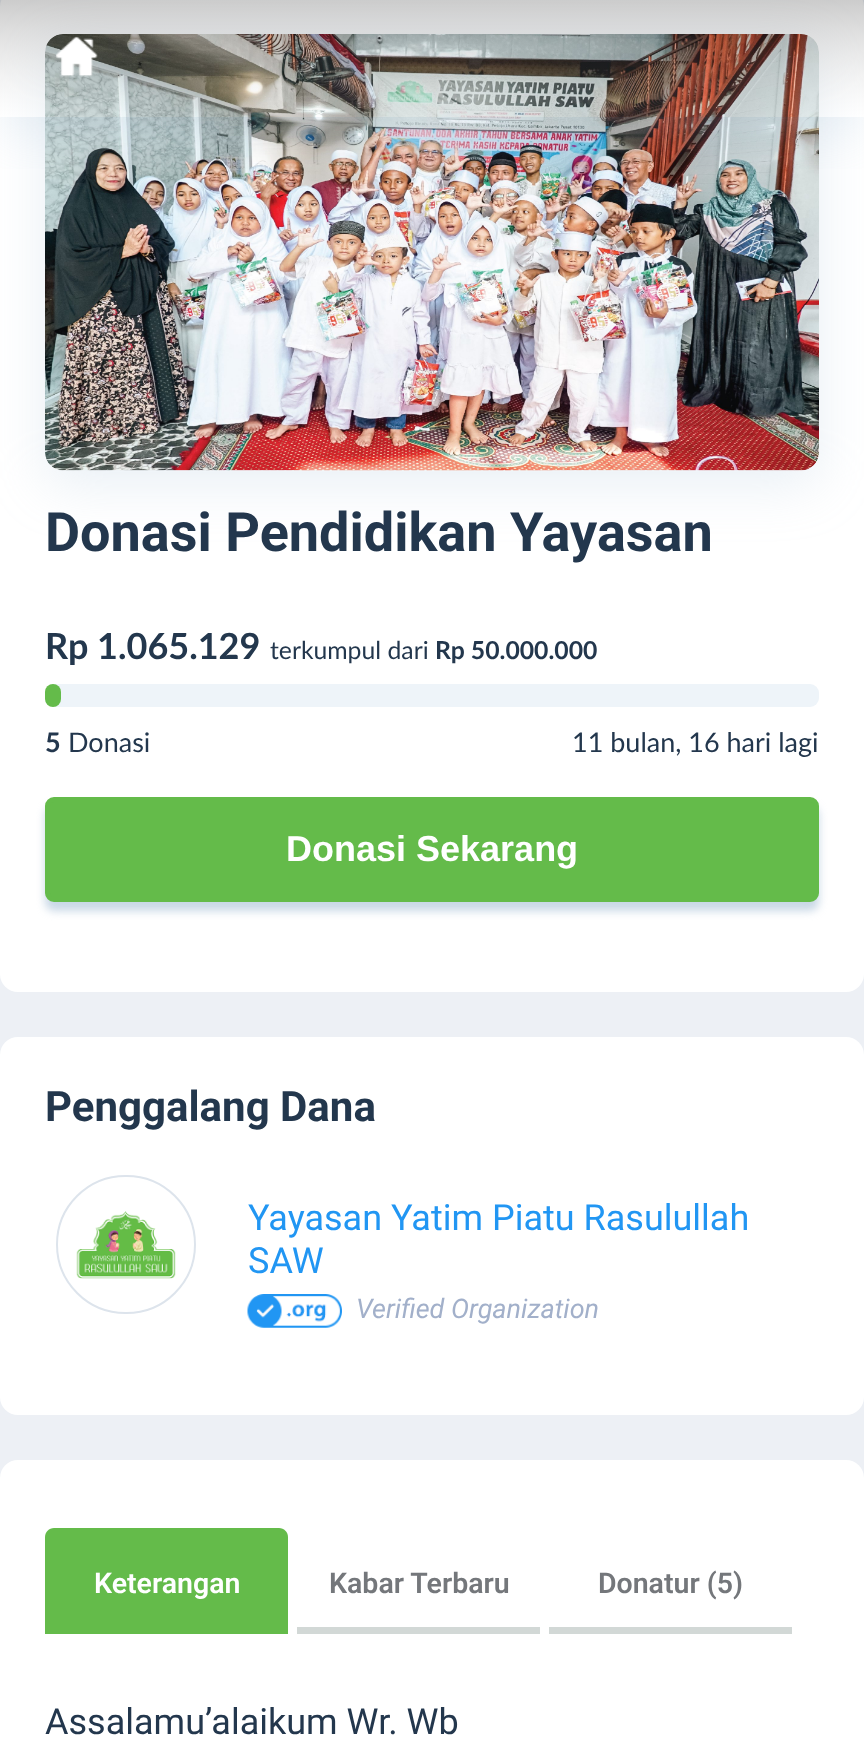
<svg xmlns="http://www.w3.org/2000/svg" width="864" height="1754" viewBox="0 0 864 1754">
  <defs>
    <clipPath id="clip1"><rect x="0" y="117" width="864" height="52"/></clipPath>
    <linearGradient id="g1" gradientUnits="userSpaceOnUse" x1="432" y1="117" x2="432" y2="0"><stop offset="0" stop-color="rgb(255,255,255)" stop-opacity="0.1"/><stop offset="1" stop-color="rgb(0,0,0)" stop-opacity="0.2"/></linearGradient>
  </defs>
  <rect width="100%" height="100%" fill="rgb(237,240,245)"/>
  <rect x="0" y="-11" width="864" height="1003" rx="18" fill="rgb(255,255,255)"/>
  <rect x="45" y="47" width="774" height="437" rx="18" fill="rgba(164,192,217,0.25)" filter="blur(27px)"/>
  <rect x="45" y="34" width="774" height="436" rx="18" fill="rgb(255,255,255)"/>
  <image x="45" y="34" width="774" height="437" href="pic2.png"/>
  <g clip-path="url(#clip1)">
    <rect x="0" y="14" width="864" height="117" fill="rgba(164,192,217,0.25)" filter="blur(27px)"/>
  </g>
  <rect x="0" y="0" width="864" height="117" fill="url(#g1)"/>
  <image x="56" y="36" width="42" height="41" href="pic1.png"/>
  <text x="45" y="551" font-family="Roboto" font-size="54" font-weight="bold" fill="rgb(35,55,77)">Donasi Pendidikan Yayasan</text>
  <text x="45" y="659" font-family="Lato" font-size="36" font-weight="bold" fill="rgb(35,55,77)">Rp 1.065.129</text>
  <text x="270" y="659" font-family="Lato" font-size="24.75" fill="rgb(35,55,77)">terkumpul dari</text>
  <text x="435" y="659" font-family="Lato" font-size="24.75" font-weight="bold" fill="rgb(35,55,77)">Rp 50.000.000</text>
  <rect x="45" y="684" width="774" height="23" rx="9" fill="rgb(238,244,249)"/>
  <rect x="45" y="684" width="16" height="23" rx="8" fill="rgb(100,187,74)"/>
  <text x="45" y="752" font-family="Lato" font-size="27" font-weight="bold" fill="rgb(35,55,77)">5</text>
  <g font-family="Lato" font-size="27" fill="rgb(35,55,77)">
    <text x="68" y="752">Donasi</text>
    <text x="572" y="752">11 bulan, 16 hari lagi</text>
  </g>
  <rect x="45" y="806" width="774" height="105" rx="9" fill="rgba(169,194,215,0.63)" filter="blur(4.5px)"/>
  <rect x="47.5" y="799.5" width="769" height="100" rx="6.5" fill="rgb(100,187,74)" stroke="rgb(100,187,74)" stroke-width="5"/>
  <text x="286" y="861" font-family="Liberation Sans" font-size="36" font-weight="bold" fill="rgb(255,255,255)">Donasi Sekarang</text>
  <rect x="0" y="1037" width="864" height="378" rx="18" fill="rgb(255,255,255)"/>
  <text x="45" y="1121" font-family="Roboto" font-size="42" font-weight="bold" fill="rgb(35,55,77)">Penggalang Dana</text>
  <rect x="57" y="1176" width="138" height="137" rx="68.5" fill="none" stroke="rgb(221,228,236)" stroke-width="2"/>
  <image x="76" y="1211" width="100" height="68" href="pic3.png"/>
  <g font-family="Roboto" font-size="36" fill="rgb(33,150,243)">
    <text>
      <tspan x="248" y="1230">Yayasan Yatim Piatu Rasulullah</tspan>
      <tspan x="248" y="1273">SAW</tspan>
    </text>
  </g>
  <image x="247" y="1294" width="95" height="34" href="pic4.png"/>
  <text x="356" y="1318" font-family="Roboto" font-size="27" font-style="italic" fill="rgb(162,176,202)">Verified Organization</text>
  <rect x="0" y="1460" width="864" height="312" rx="18" fill="rgb(255,255,255)"/>
  <path d="M54 1528H279C284 1528 288 1532 288 1537V1634H45V1537C45 1532 49 1528 54 1528Z" fill="rgb(100,187,74)"/>
  <text x="94" y="1593" font-family="Roboto" font-size="28.5" font-weight="600" fill="rgb(255,255,255)">Keterangan</text>
  <text x="329" y="1593" font-family="Roboto" font-size="28.5" font-weight="600" fill="rgb(116,119,123)">Kabar Terbaru</text>
  <rect x="297" y="1627" width="243" height="7" fill="rgb(210,216,214)"/>
  <text x="598" y="1593" font-family="Roboto" font-size="28.5" font-weight="600" fill="rgb(116,119,123)">Donatur (5)</text>
  <rect x="549" y="1627" width="243" height="7" fill="rgb(210,216,214)"/>
  <text x="45" y="1734" font-family="Roboto" font-size="36" fill="rgb(35,55,77)">Assalamu’alaikum Wr. Wb</text>
</svg>
